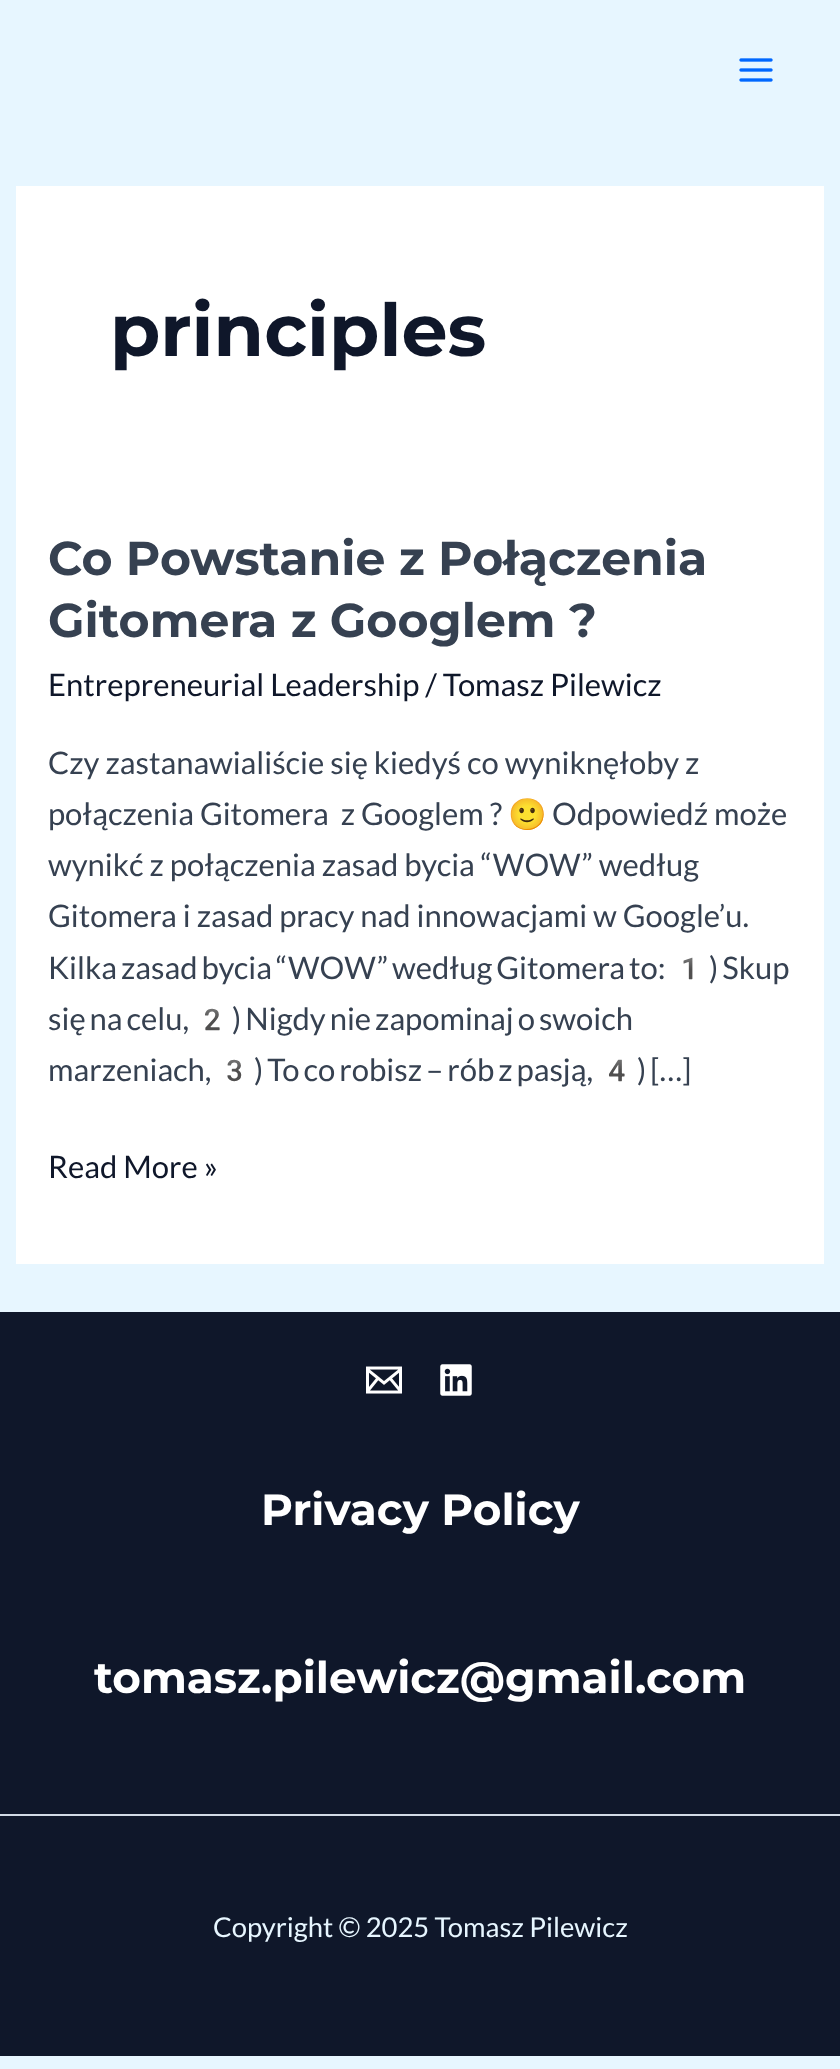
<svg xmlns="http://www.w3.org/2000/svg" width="840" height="2069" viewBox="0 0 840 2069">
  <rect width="100%" height="100%" fill="rgb(231,246,255)"/>
  <image x="739" y="58" width="34" height="24" href="pic1.png"/>
  <rect x="16" y="186" width="808" height="1078" fill="rgb(255,255,255)"/>
  <text x="110" y="356" font-family="Montserrat" font-size="73" font-weight="100" fill="rgb(15,23,42)">principles</text>
  <g font-family="Montserrat" font-size="47.4" font-weight="100" fill="rgb(54,65,81)">
    <text>
      <tspan x="48" y="575">Co Powstanie z Połączenia</tspan>
      <tspan x="48" y="637">Gitomera z Googlem ?</tspan>
    </text>
  </g>
  <text x="48" y="696" font-family="Lato" font-size="31" fill="rgb(15,23,42)">Entrepreneurial Leadership / Tomasz Pilewicz</text>
  <g font-family="Lato" font-size="31" fill="rgb(54,65,81)">
    <text xml:space="preserve"><tspan x="48" y="774">Czy zastanawialiście się kiedyś co wyniknęłoby z</tspan><tspan x="48" y="825">połączenia Gitomera  z Googlem ?</tspan></text>
  </g>
  <text x="508" y="825" font-family="Noto Color Emoji" font-size="31" fill="rgb(54,65,81)">🙂</text>
  <g font-family="Lato" font-size="31" fill="rgb(54,65,81)">
    <text x="552" y="825">Odpowiedź może</text>
    <text>
      <tspan x="48" y="876">wynikć z połączenia zasad bycia “WOW” według</tspan>
      <tspan x="48" y="927">Gitomera i zasad pracy nad innowacjami w Google’u.</tspan>
      <tspan x="48" y="979" word-spacing="-2">Kilka zasad bycia “WOW” według Gitomera to:</tspan>
    </text>
  </g>
  <text x="670" y="979" font-family="Noto Color Emoji" font-size="31" fill="rgb(54,65,81)">1</text>
  <g font-family="Lato" font-size="31" fill="rgb(54,65,81)">
    <text x="709" y="979" word-spacing="-2">) Skup</text>
    <text x="48" y="1030" word-spacing="-2">się na celu,</text>
  </g>
  <text x="193" y="1030" font-family="Noto Color Emoji" font-size="31" fill="rgb(54,65,81)">2</text>
  <g font-family="Lato" font-size="31" fill="rgb(54,65,81)">
    <text x="232" y="1030" word-spacing="-2">) Nigdy nie zapominaj o swoich</text>
    <text x="48" y="1081">marzeniach,</text>
  </g>
  <text x="215" y="1081" font-family="Noto Color Emoji" font-size="31" fill="rgb(54,65,81)">3</text>
  <text x="254" y="1081" word-spacing="-2" font-family="Lato" font-size="31" fill="rgb(54,65,81)">) To co robisz – rób z pasją,</text>
  <text x="598" y="1081" font-family="Noto Color Emoji" font-size="31" fill="rgb(54,65,81)">4</text>
  <text x="637" y="1081" word-spacing="-2" font-family="Lato" font-size="31" fill="rgb(54,65,81)">) […]</text>
  <text x="48" y="1178" font-family="Lato" font-size="31" fill="rgb(15,23,42)">Read More »</text>
  <rect x="0" y="1312" width="840" height="502" fill="rgb(15,23,42)"/>
  <image x="366" y="1366" width="36" height="28" href="pic2.png"/>
  <image x="440" y="1364" width="32" height="32" href="pic3.png"/>
  <g font-family="Montserrat" font-size="43.75" font-weight="100" fill="rgb(255,255,255)">
    <text x="261" y="1525">Privacy Policy</text>
    <text x="94" y="1693">tomasz.pilewicz@gmail.com</text>
  </g>
  <rect x="0" y="1816" width="840" height="240" fill="rgb(15,23,42)"/>
  <rect x="0" y="1814" width="840" height="2" fill="rgb(209,218,229)"/>
  <text x="213" y="1937" font-family="Lato" font-size="27.4" fill="rgb(231,246,255)">Copyright © 2025 Tomasz Pilewicz</text>
</svg>
